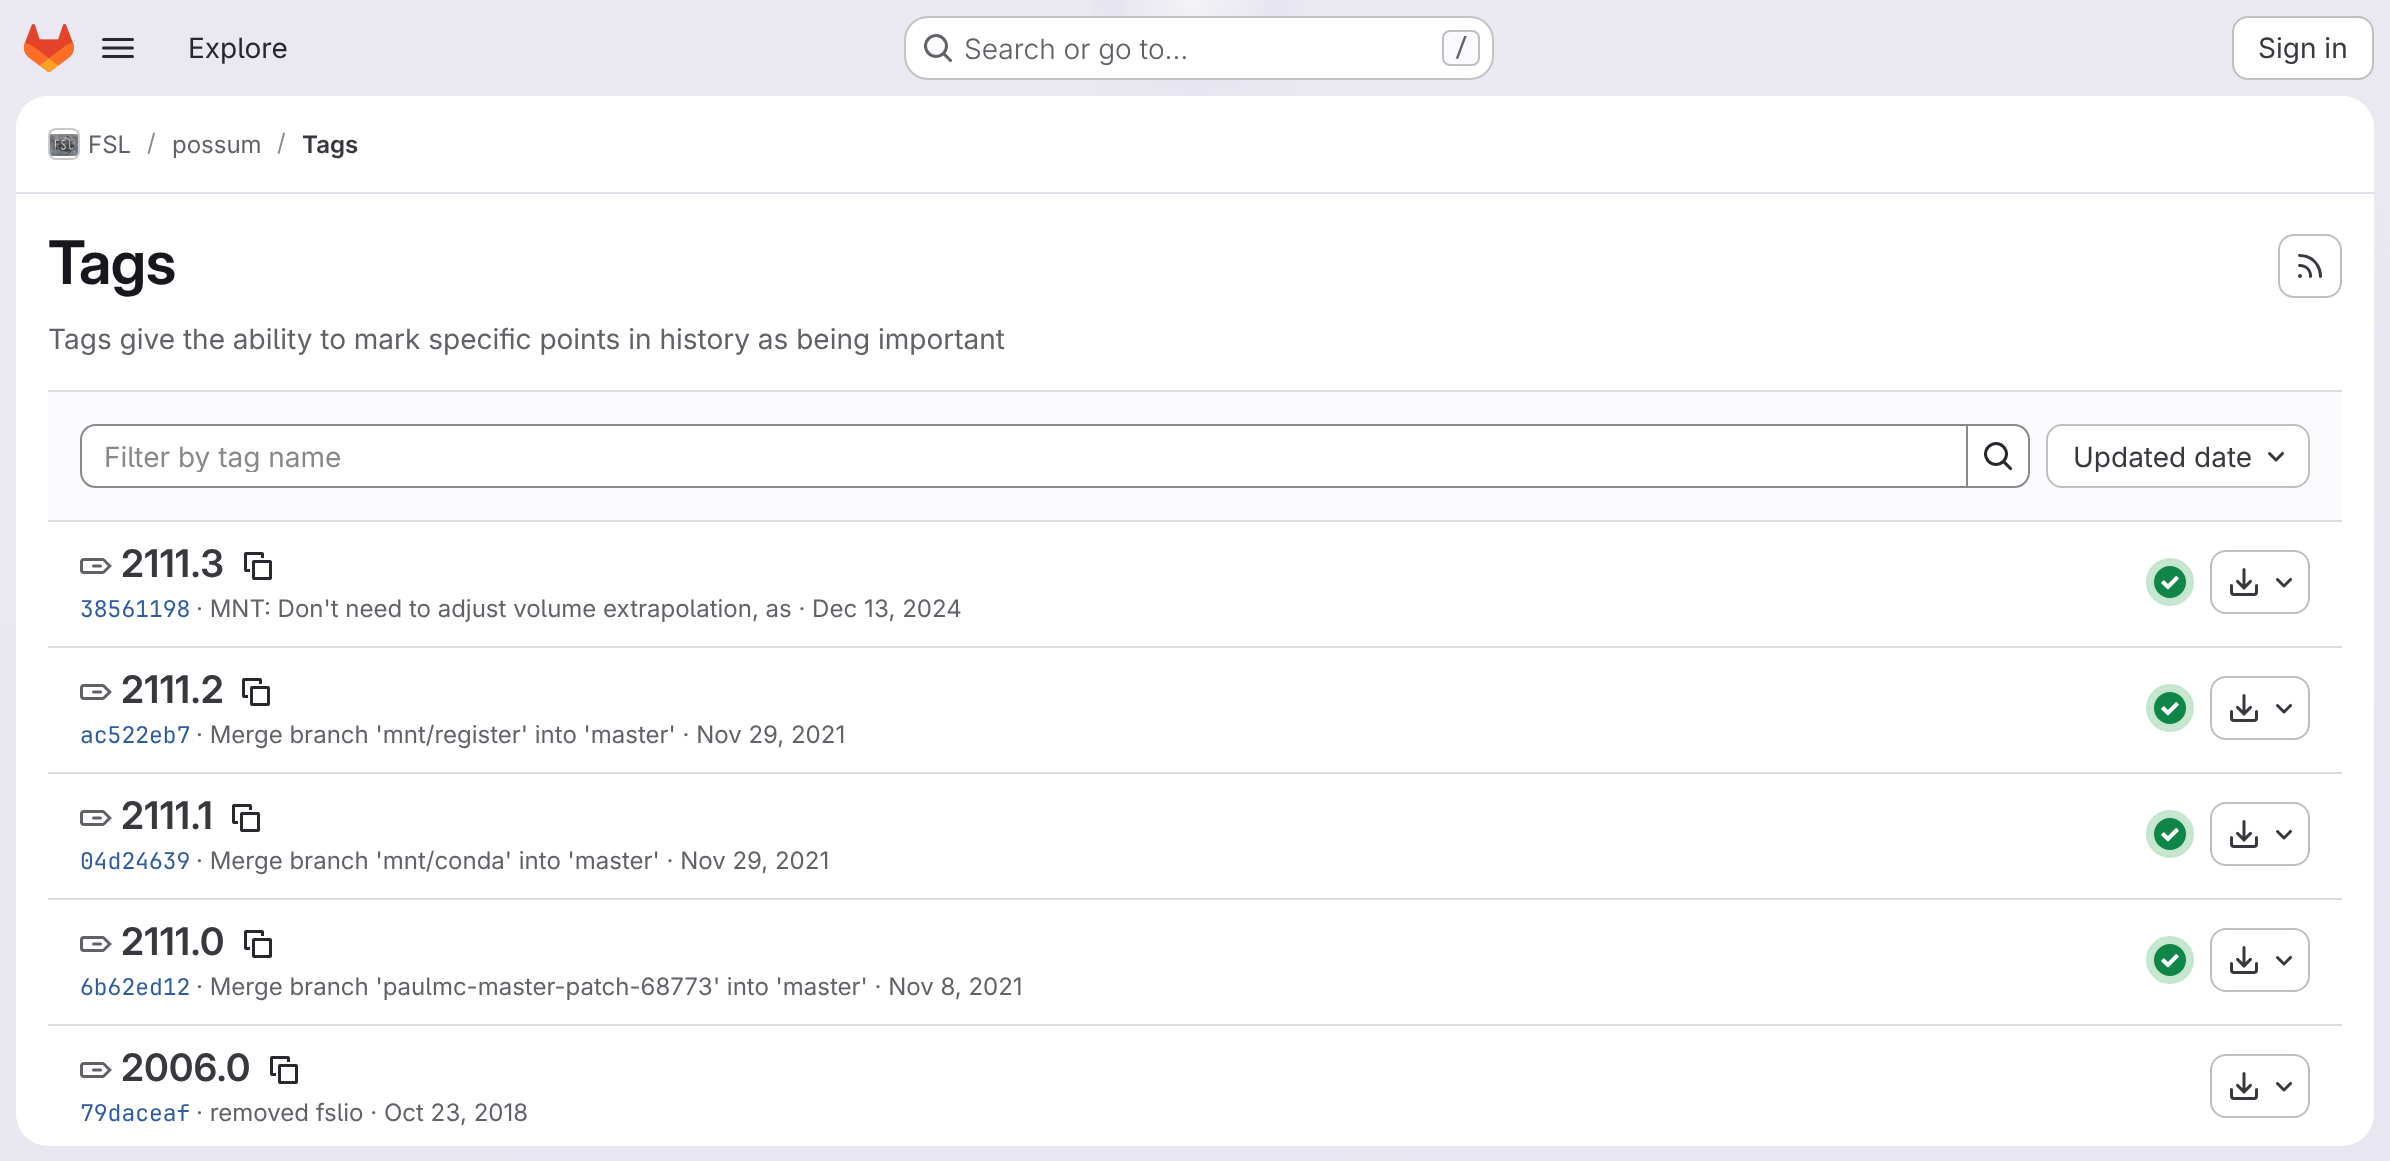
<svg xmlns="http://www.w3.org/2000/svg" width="2390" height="1161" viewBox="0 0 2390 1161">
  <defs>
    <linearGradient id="g1" gradientUnits="userSpaceOnUse" x1="1330" y1="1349" x2="1060" y2="-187"><stop offset="0" stop-color="rgb(232,230,240)"/><stop offset="0.7" stop-color="rgb(234,233,242)"/></linearGradient>
    <radialGradient id="g2" gradientUnits="userSpaceOnUse" cx="0" cy="0" r="1" gradientTransform="matrix(1195 0 0 1162 1195 0)"><stop offset="0" stop-color="rgb(228,226,237)"/><stop offset="0.12" stop-color="rgb(228,226,237)" stop-opacity="0"/></radialGradient>
    <radialGradient id="g3" gradientUnits="userSpaceOnUse" cx="0" cy="0" r="1" gradientTransform="matrix(1195 0 0 1162 1195 0)"><stop offset="0" stop-color="rgb(228,226,236)"/><stop offset="0.08" stop-color="rgb(228,226,236)" stop-opacity="0"/></radialGradient>
    <radialGradient id="g4" gradientUnits="userSpaceOnUse" cx="1195" cy="0" r="1667"><stop offset="0" stop-color="rgb(255,255,255)" stop-opacity="0.6"/><stop offset="0.05" stop-color="rgb(255,255,255)" stop-opacity="0"/></radialGradient>
    <clipPath id="clip1"><rect x="104" y="438" width="1800" height="34"/></clipPath>
    <clipPath id="clip2"><rect x="2072" y="440" width="180" height="32"/></clipPath>
  </defs>
  <rect width="100%" height="100%" fill="rgb(255,255,255)"/>
  <rect x="0" y="0" width="2390" height="1161" fill="url(#g1)"/>
  <rect x="1092" y="0" width="206" height="96" fill="url(#g2)"/>
  <rect x="1168" y="1" width="62" height="30" fill="url(#g3)"/>
  <rect x="1125" y="0" width="140" height="16" fill="url(#g4)"/>
  <image x="24" y="24" width="50" height="48" href="pic1.png"/>
  <image x="102" y="38" width="32" height="20" href="pic2.png"/>
  <text x="188" y="58" font-family="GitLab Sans" font-size="28" fill="rgb(40,39,45)">Explore</text>
  <rect x="904" y="16" width="590" height="64" rx="24" fill="rgb(255,255,255)"/>
  <rect x="905" y="17" width="588" height="62" rx="23" fill="none" stroke="rgba(5,5,6,0.24)" stroke-width="2"/>
  <image x="924" y="34" width="29" height="29" href="pic3.png"/>
  <text x="964" y="59" font-family="GitLab Sans" font-size="28" font-weight="300" fill="rgb(98,97,104)">Search or go to…</text>
  <rect x="1443" y="31" width="36" height="34" rx="7" fill="rgb(251,250,253)" stroke="rgb(191,191,195)" stroke-width="2"/>
  <text x="1454" y="56" font-family="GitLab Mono" font-size="24" font-weight="500" fill="rgb(98,97,104)">/</text>
  <rect x="2233" y="17" width="140" height="62" rx="15" fill="rgb(255,255,255)" stroke="rgb(191,191,195)" stroke-width="2"/>
  <text x="2258" y="58" font-family="GitLab Sans" font-size="28" fill="rgb(58,56,63)">Sign in</text>
  <rect x="16" y="96" width="2358" height="1050" rx="32" fill="rgb(255,255,255)"/>
  <path d="M48 96H2342C2359.5 96 2374 110.5 2374 128V194H16V128C16 110.5 30.5 96 48 96Z" fill="rgb(255,255,255)"/>
  <rect x="16" y="192" width="2358" height="2" fill="rgb(225,223,236)"/>
  <rect x="49" y="129" width="30" height="30" rx="7" fill="none" stroke="rgb(220,220,222)" stroke-width="2"/>
  <image x="50" y="134" width="28" height="22" href="pic4.png"/>
  <rect x="49" y="129" width="30" height="30" rx="7" fill="none" stroke="rgba(5,5,6,0.08)" stroke-width="2"/>
  <text x="88" y="153" font-family="GitLab Sans" font-size="24" fill="rgb(98,97,104)">FSL</text>
  <text x="147" y="151" font-family="GitLab Sans" font-size="24" fill="rgb(137,136,141)">/</text>
  <text x="172" y="153" font-family="GitLab Sans" font-size="24" fill="rgb(98,97,104)">possum</text>
  <text x="277" y="151" font-family="GitLab Sans" font-size="24" fill="rgb(137,136,141)">/</text>
  <text x="302" y="153" font-family="'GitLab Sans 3'" font-size="24" font-weight="600" fill="rgb(58,56,63)">Tags</text>
  <text x="48" y="284" font-family="GitLab Sans" font-size="60" font-weight="600" letter-spacing="-0.5" fill="rgb(24,23,29)">Tags</text>
  <rect x="2279" y="235" width="62" height="62" rx="15" fill="none" stroke="rgb(191,191,195)" stroke-width="2"/>
  <image x="2298" y="254" width="24" height="24" href="pic5.png"/>
  <text x="48" y="349" font-family="GitLab Sans" font-size="28" fill="rgb(98,97,104)">Tags give the ability to mark specific points in history as being important</text>
  <rect x="48" y="392" width="2294" height="128" fill="rgb(251,250,253)"/>
  <rect x="48" y="390" width="2294" height="2" fill="rgb(220,220,222)"/>
  <rect x="48" y="520" width="2294" height="2" fill="rgb(220,220,222)"/>
  <path d="M96 425H1967V487H96C87.5 487 81 480.5 81 472V440C81 431.5 87.5 425 96 425Z" fill="rgb(255,255,255)" stroke="rgb(137,136,141)" stroke-width="2"/>
  <g clip-path="url(#clip1)">
    <text x="104" y="467" font-family="GitLab Sans" font-size="28" fill="rgb(137,136,141)">Filter by tag name</text>
  </g>
  <path d="M1967 425H2014C2022.5 425 2029 431.5 2029 440V472C2029 480.5 2022.5 487 2014 487H1967Z" fill="rgb(255,255,255)" stroke="rgb(137,136,141)" stroke-width="2"/>
  <image x="1984" y="442" width="29" height="29" href="pic6.png"/>
  <rect x="2047" y="425" width="262" height="62" rx="15" fill="rgb(255,255,255)" stroke="rgb(191,191,195)" stroke-width="2"/>
  <g clip-path="url(#clip2)">
    <text x="2073" y="467" font-family="GitLab Sans" font-size="28" fill="rgb(58,56,63)">Updated date</text>
  </g>
  <image x="2268" y="451" width="17" height="11" href="pic7.png"/>
  <rect x="48" y="646" width="2294" height="2" fill="rgb(220,220,222)"/>
  <image x="80" y="558" width="32" height="16" href="pic8.png"/>
  <text x="121" y="577" font-family="'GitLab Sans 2'" font-size="38" font-weight="600" fill="rgb(58,56,63)">2111.3</text>
  <image x="244" y="552" width="28" height="28" href="pic9.png"/>
  <text x="80" y="617" font-family="GitLab Mono" font-size="23" fill="rgb(47,92,160)">38561198</text>
  <text x="196" y="617" font-family="GitLab Sans" font-size="24" fill="rgb(98,97,104)">· MNT: Don't need to adjust volume extrapolation, as · Dec 13, 2024</text>
  <circle cx="2170" cy="582" r="22" fill="none" stroke="rgb(195,230,205)" stroke-width="4"/>
  <circle cx="2170" cy="582" r="18" fill="rgb(16,133,72)" stroke="rgb(195,230,205)" stroke-width="4"/>
  <image x="2161" y="576" width="18" height="14" href="pic10.png"/>
  <rect x="2211" y="551" width="98" height="62" rx="15" fill="none" stroke="rgb(191,191,195)" stroke-width="2"/>
  <image x="2230" y="568" width="28" height="28" href="pic11.png"/>
  <image x="2275" y="577" width="18" height="11" href="pic12.png"/>
  <rect x="48" y="772" width="2294" height="2" fill="rgb(220,220,222)"/>
  <image x="80" y="684" width="32" height="16" href="pic8.png"/>
  <text x="121" y="703" font-family="'GitLab Sans 2'" font-size="38" font-weight="600" fill="rgb(58,56,63)">2111.2</text>
  <image x="242" y="678" width="28" height="28" href="pic9.png"/>
  <text x="80" y="743" font-family="GitLab Mono" font-size="23" fill="rgb(47,92,160)">ac522eb7</text>
  <text x="196" y="743" font-family="GitLab Sans" font-size="24" fill="rgb(98,97,104)">· Merge branch 'mnt/register' into 'master' · Nov 29, 2021</text>
  <circle cx="2170" cy="708" r="22" fill="none" stroke="rgb(195,230,205)" stroke-width="4"/>
  <circle cx="2170" cy="708" r="18" fill="rgb(16,133,72)" stroke="rgb(195,230,205)" stroke-width="4"/>
  <image x="2161" y="702" width="18" height="14" href="pic10.png"/>
  <rect x="2211" y="677" width="98" height="62" rx="15" fill="none" stroke="rgb(191,191,195)" stroke-width="2"/>
  <image x="2230" y="694" width="28" height="28" href="pic11.png"/>
  <image x="2275" y="703" width="18" height="11" href="pic12.png"/>
  <rect x="48" y="898" width="2294" height="2" fill="rgb(220,220,222)"/>
  <image x="80" y="810" width="32" height="16" href="pic8.png"/>
  <text x="121" y="829" font-family="'GitLab Sans 2'" font-size="38" font-weight="600" fill="rgb(58,56,63)">2111.1</text>
  <image x="232" y="804" width="28" height="28" href="pic13.png"/>
  <text x="80" y="869" font-family="GitLab Mono" font-size="23" fill="rgb(47,92,160)">04d24639</text>
  <text x="196" y="869" font-family="GitLab Sans" font-size="24" fill="rgb(98,97,104)">· Merge branch 'mnt/conda' into 'master' · Nov 29, 2021</text>
  <circle cx="2170" cy="834" r="22" fill="none" stroke="rgb(195,230,205)" stroke-width="4"/>
  <circle cx="2170" cy="834" r="18" fill="rgb(16,133,72)" stroke="rgb(195,230,205)" stroke-width="4"/>
  <image x="2161" y="828" width="18" height="14" href="pic10.png"/>
  <rect x="2211" y="803" width="98" height="62" rx="15" fill="none" stroke="rgb(191,191,195)" stroke-width="2"/>
  <image x="2230" y="820" width="28" height="28" href="pic11.png"/>
  <image x="2275" y="829" width="18" height="11" href="pic12.png"/>
  <rect x="48" y="1024" width="2294" height="2" fill="rgb(220,220,222)"/>
  <image x="80" y="936" width="32" height="16" href="pic8.png"/>
  <text x="121" y="955" font-family="'GitLab Sans 2'" font-size="38" font-weight="600" fill="rgb(58,56,63)">2111.0</text>
  <image x="244" y="930" width="28" height="28" href="pic9.png"/>
  <text x="80" y="995" font-family="GitLab Mono" font-size="23" fill="rgb(47,92,160)">6b62ed12</text>
  <text x="196" y="995" font-family="GitLab Sans" font-size="24" fill="rgb(98,97,104)">· Merge branch 'paulmc-master-patch-68773' into 'master' · Nov 8, 2021</text>
  <circle cx="2170" cy="960" r="22" fill="none" stroke="rgb(195,230,205)" stroke-width="4"/>
  <circle cx="2170" cy="960" r="18" fill="rgb(16,133,72)" stroke="rgb(195,230,205)" stroke-width="4"/>
  <image x="2161" y="954" width="18" height="14" href="pic10.png"/>
  <rect x="2211" y="929" width="98" height="62" rx="15" fill="none" stroke="rgb(191,191,195)" stroke-width="2"/>
  <image x="2230" y="946" width="28" height="28" href="pic11.png"/>
  <image x="2275" y="955" width="18" height="11" href="pic12.png"/>
  <image x="80" y="1062" width="32" height="16" href="pic14.png"/>
  <text x="121" y="1081" font-family="'GitLab Sans 2'" font-size="38" font-weight="600" fill="rgb(58,56,63)">2006.0</text>
  <image x="270" y="1056" width="28" height="28" href="pic13.png"/>
  <text x="80" y="1121" font-family="GitLab Mono" font-size="23" fill="rgb(47,92,160)">79daceaf</text>
  <text x="196" y="1121" font-family="GitLab Sans" font-size="24" fill="rgb(98,97,104)">· removed fslio · Oct 23, 2018</text>
  <rect x="2211" y="1055" width="98" height="62" rx="15" fill="none" stroke="rgb(191,191,195)" stroke-width="2"/>
  <image x="2230" y="1072" width="28" height="28" href="pic11.png"/>
  <image x="2275" y="1081" width="18" height="11" href="pic12.png"/>
</svg>
